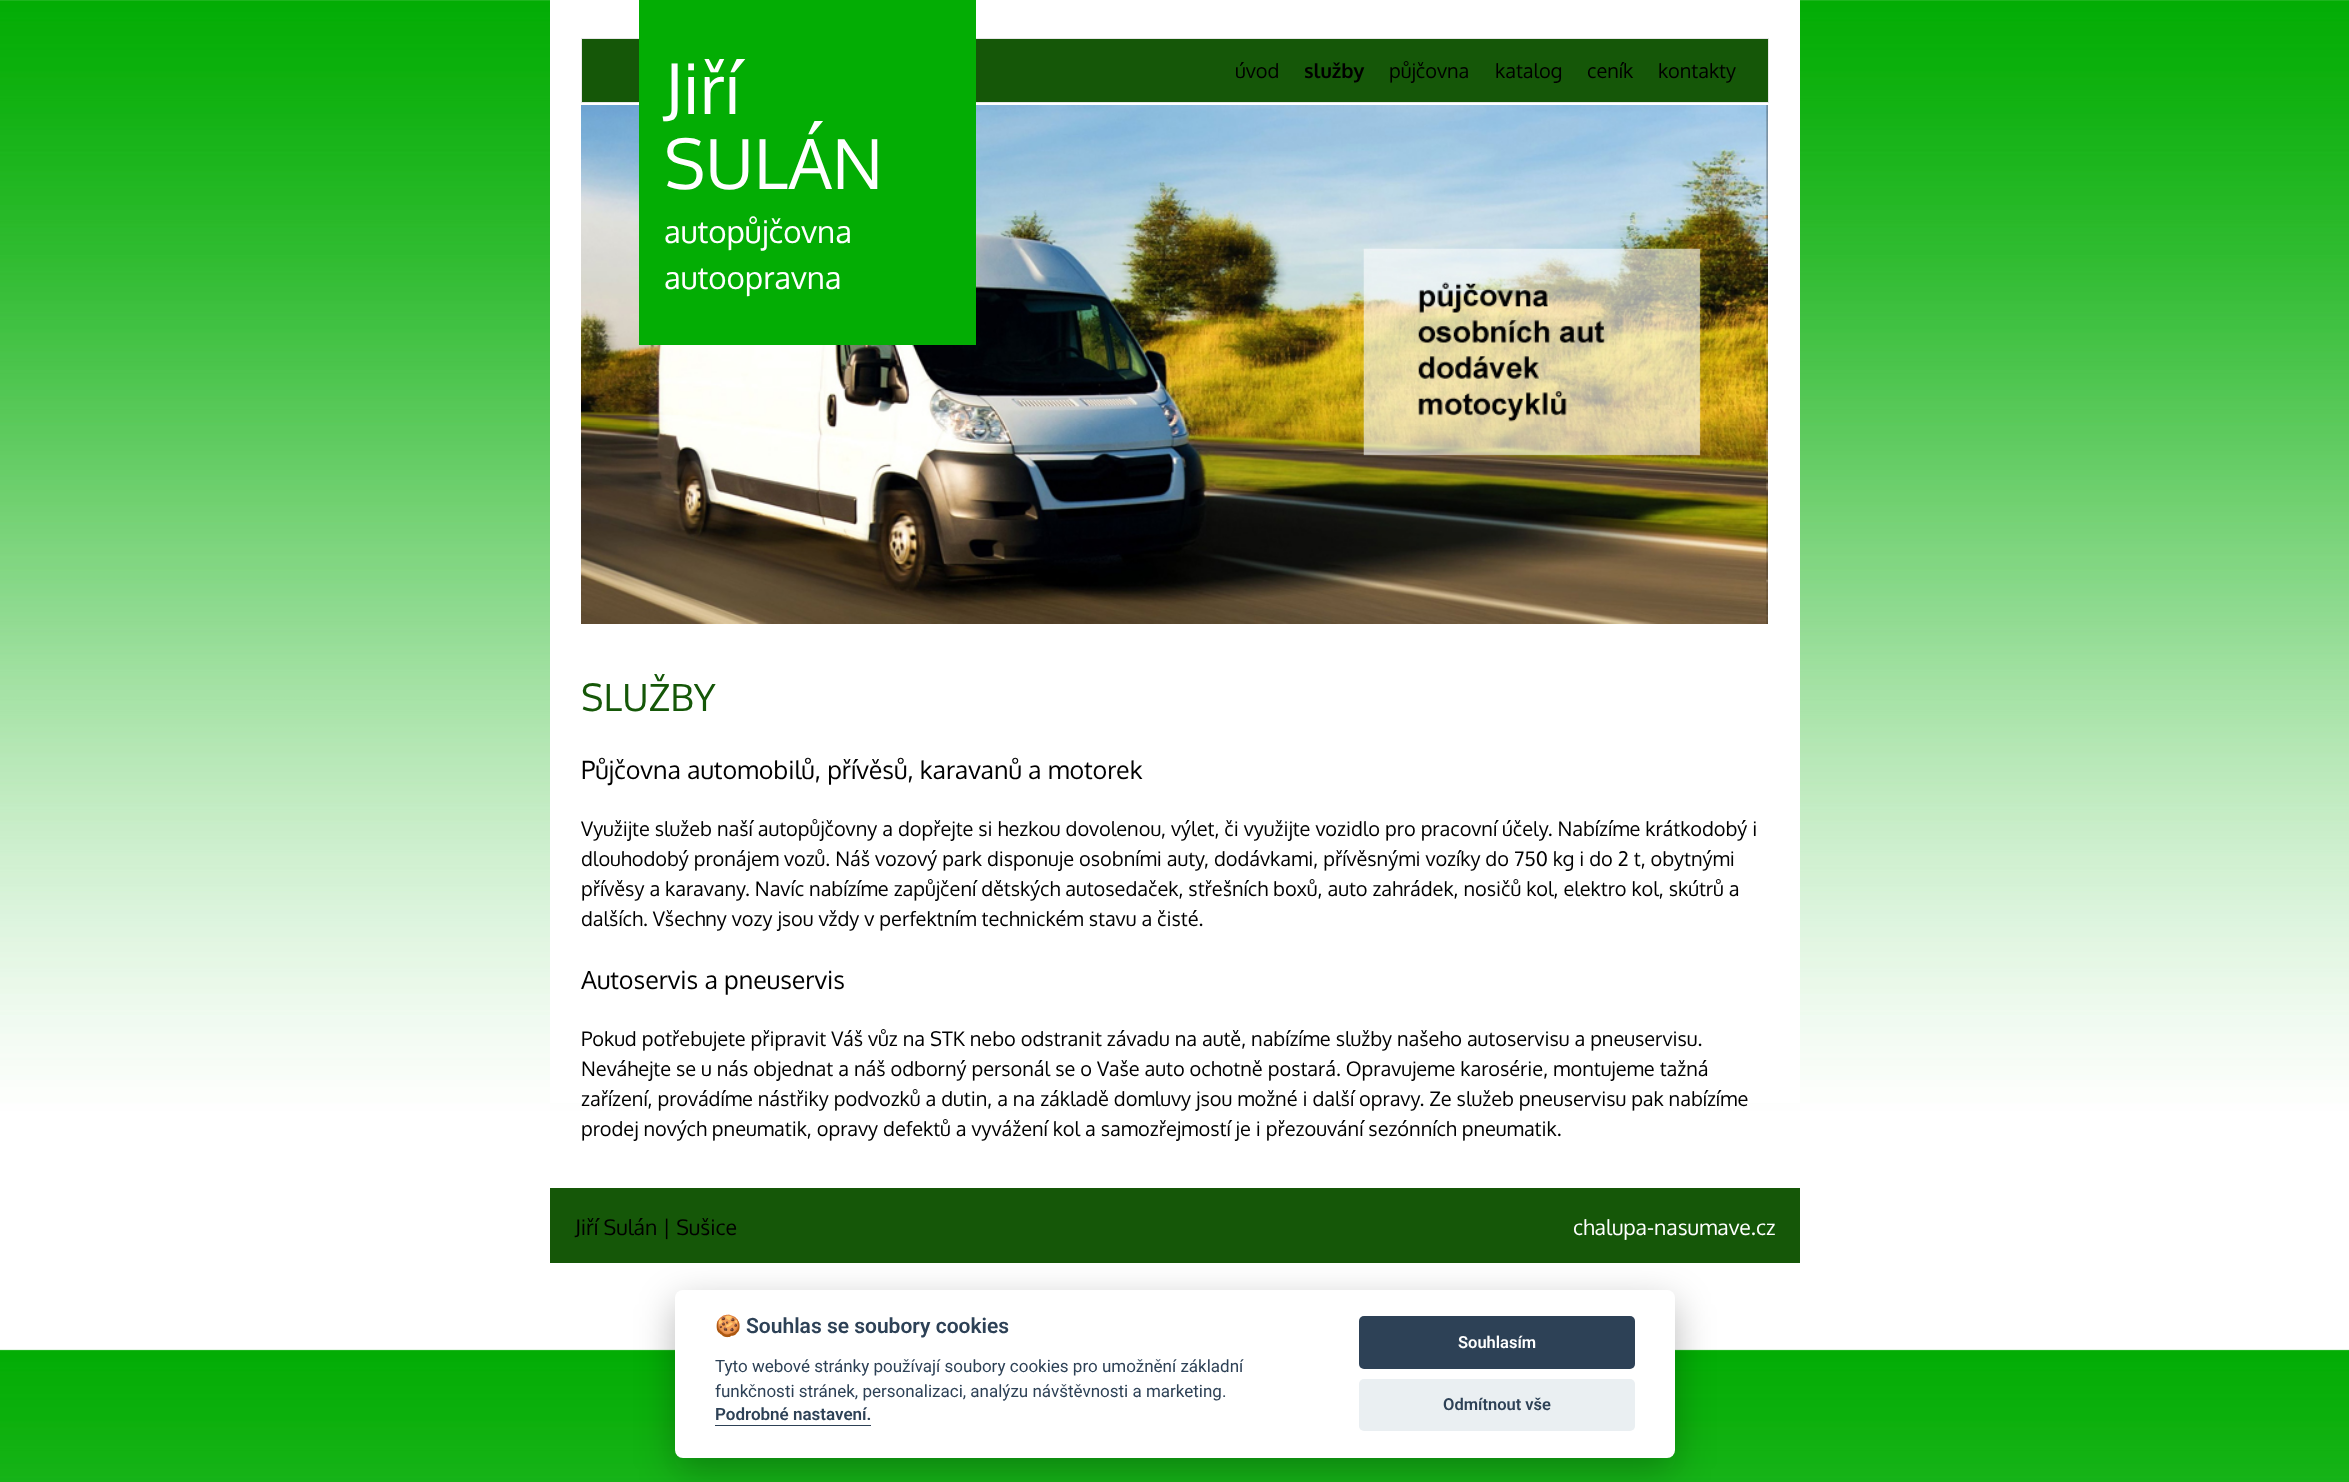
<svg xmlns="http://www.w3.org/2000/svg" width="2349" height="1482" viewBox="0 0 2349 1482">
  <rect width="100%" height="100%" fill="rgb(255,255,255)"/>
  <image x="0" y="0" width="2349" height="1482" href="pic1.png"/>
  <rect x="550" y="0" width="1250" height="103" fill="rgb(255,255,255)"/>
  <rect x="581.5" y="38.5" width="1187" height="64" fill="rgb(21,87,8)" stroke="rgb(231,231,231)"/>
  <rect x="550" y="103" width="1250" height="1000" fill="rgb(255,255,255)"/>
  <image x="581" y="105" width="1187" height="519" href="pic2.png"/>
  <rect x="639" y="0" width="337" height="345" fill="rgb(3,173,4)"/>
  <g font-family="Oxygen" font-size="69" fill="rgb(255,255,255)">
    <text>
      <tspan x="664" y="114">Jiří</tspan>
      <tspan x="664" y="189">SULÁN</tspan>
    </text>
  </g>
  <g font-family="Oxygen" font-size="31.25" fill="rgb(255,255,255)">
    <text>
      <tspan x="664" y="243">autopůjčovna</tspan>
      <tspan x="664" y="289">autoopravna</tspan>
    </text>
  </g>
  <text x="1235" y="78" font-family="Oxygen" font-size="20" fill="rgb(0,0,0)">úvod</text>
  <text x="1304" y="78" font-family="Oxygen" font-size="20" font-weight="bold" fill="rgb(0,0,0)">služby</text>
  <g font-family="Oxygen" font-size="20" fill="rgb(0,0,0)">
    <text x="1389" y="78">půjčovna</text>
    <text x="1495" y="78">katalog</text>
    <text x="1587" y="78">ceník</text>
    <text x="1658" y="78">kontakty</text>
  </g>
  <text x="581" y="711" font-family="Oxygen" font-size="37.5" fill="rgb(21,87,8)">SLUŽBY</text>
  <text x="581" y="779" font-family="Oxygen" font-size="25" fill="rgb(0,0,0)">Půjčovna automobilů, přívěsů, karavanů a motorek</text>
  <g font-family="Oxygen" font-size="20" fill="rgb(0,0,0)">
    <text>
      <tspan x="581" y="836">Využijte služeb naší autopůjčovny a dopřejte si hezkou dovolenou, výlet, či využijte vozidlo pro pracovní účely. Nabízíme krátkodobý i</tspan>
      <tspan x="581" y="866">dlouhodobý pronájem vozů. Náš vozový park disponuje osobními auty, dodávkami, přívěsnými vozíky do 750 kg i do 2 t, obytnými</tspan>
      <tspan x="581" y="896">přívěsy a karavany. Navíc nabízíme zapůjčení dětských autosedaček, střešních boxů, auto zahrádek, nosičů kol, elektro kol, skútrů a</tspan>
      <tspan x="581" y="926">dalších. Všechny vozy jsou vždy v perfektním technickém stavu a čisté.</tspan>
    </text>
  </g>
  <text x="581" y="989" font-family="Oxygen" font-size="25" fill="rgb(0,0,0)">Autoservis a pneuservis</text>
  <g font-family="Oxygen" font-size="20" fill="rgb(0,0,0)">
    <text>
      <tspan x="581" y="1046">Pokud potřebujete připravit Váš vůz na STK nebo odstranit závadu na autě, nabízíme služby našeho autoservisu a pneuservisu.</tspan>
      <tspan x="581" y="1076">Neváhejte se u nás objednat a náš odborný personál se o Vaše auto ochotně postará. Opravujeme karosérie, montujeme tažná</tspan>
      <tspan x="581" y="1106">zařízení, provádíme nástřiky podvozků a dutin, a na základě domluvy jsou možné i další opravy. Ze služeb pneuservisu pak nabízíme</tspan>
      <tspan x="581" y="1136">prodej nových pneumatik, opravy defektů a vyvážení kol a samozřejmostí je i přezouvání sezónních pneumatik.</tspan>
    </text>
  </g>
  <rect x="550" y="1188" width="1250" height="75" fill="rgb(21,87,8)"/>
  <text x="575" y="1235" font-family="Oxygen" font-size="21.25" fill="rgb(0,0,0)">Jiří Sulán | Sušice</text>
  <text x="1573" y="1235" font-family="Oxygen" font-size="21.25" fill="rgb(255,255,255)">chalupa-nasumave.cz</text>
  <rect x="675" y="1303" width="1000" height="167" rx="8" fill="rgba(2,2,3,0.28)" filter="blur(19px)"/>
  <rect x="675" y="1290" width="1000" height="168" rx="8" fill="rgb(255,255,255)"/>
  <text x="715" y="1333" font-family="Noto Color Emoji" font-size="21" font-weight="bold" fill="rgb(45,65,86)">🍪</text>
  <text x="746" y="1333" font-family="Roboto" font-size="21" font-weight="600" fill="rgb(45,65,86)">Souhlas se soubory cookies</text>
  <g font-family="Roboto" font-size="17" fill="rgb(45,65,86)">
    <text>
      <tspan x="715" y="1372">Tyto webové stránky používají soubory cookies pro umožnění základní</tspan>
      <tspan x="715" y="1397">funkčnosti stránek, personalizaci, analýzu návštěvnosti a marketing.</tspan>
    </text>
  </g>
  <text x="715" y="1420" font-family="Roboto" font-size="17" font-weight="600" fill="rgb(45,65,86)">Podrobné nastavení.</text>
  <rect x="715" y="1425" width="156" height="1" fill="rgb(45,65,86)"/>
  <rect x="1359" y="1316" width="276" height="53" rx="5" fill="rgb(45,65,86)"/>
  <text x="1458" y="1348" font-family="Roboto" font-size="16.5" font-weight="600" fill="rgb(255,255,255)">Souhlasím</text>
  <rect x="1359" y="1379" width="276" height="52" rx="5" fill="rgb(234,239,242)"/>
  <text x="1443" y="1410" font-family="Roboto" font-size="16.5" font-weight="600" fill="rgb(45,65,86)">Odmítnout vše</text>
</svg>
